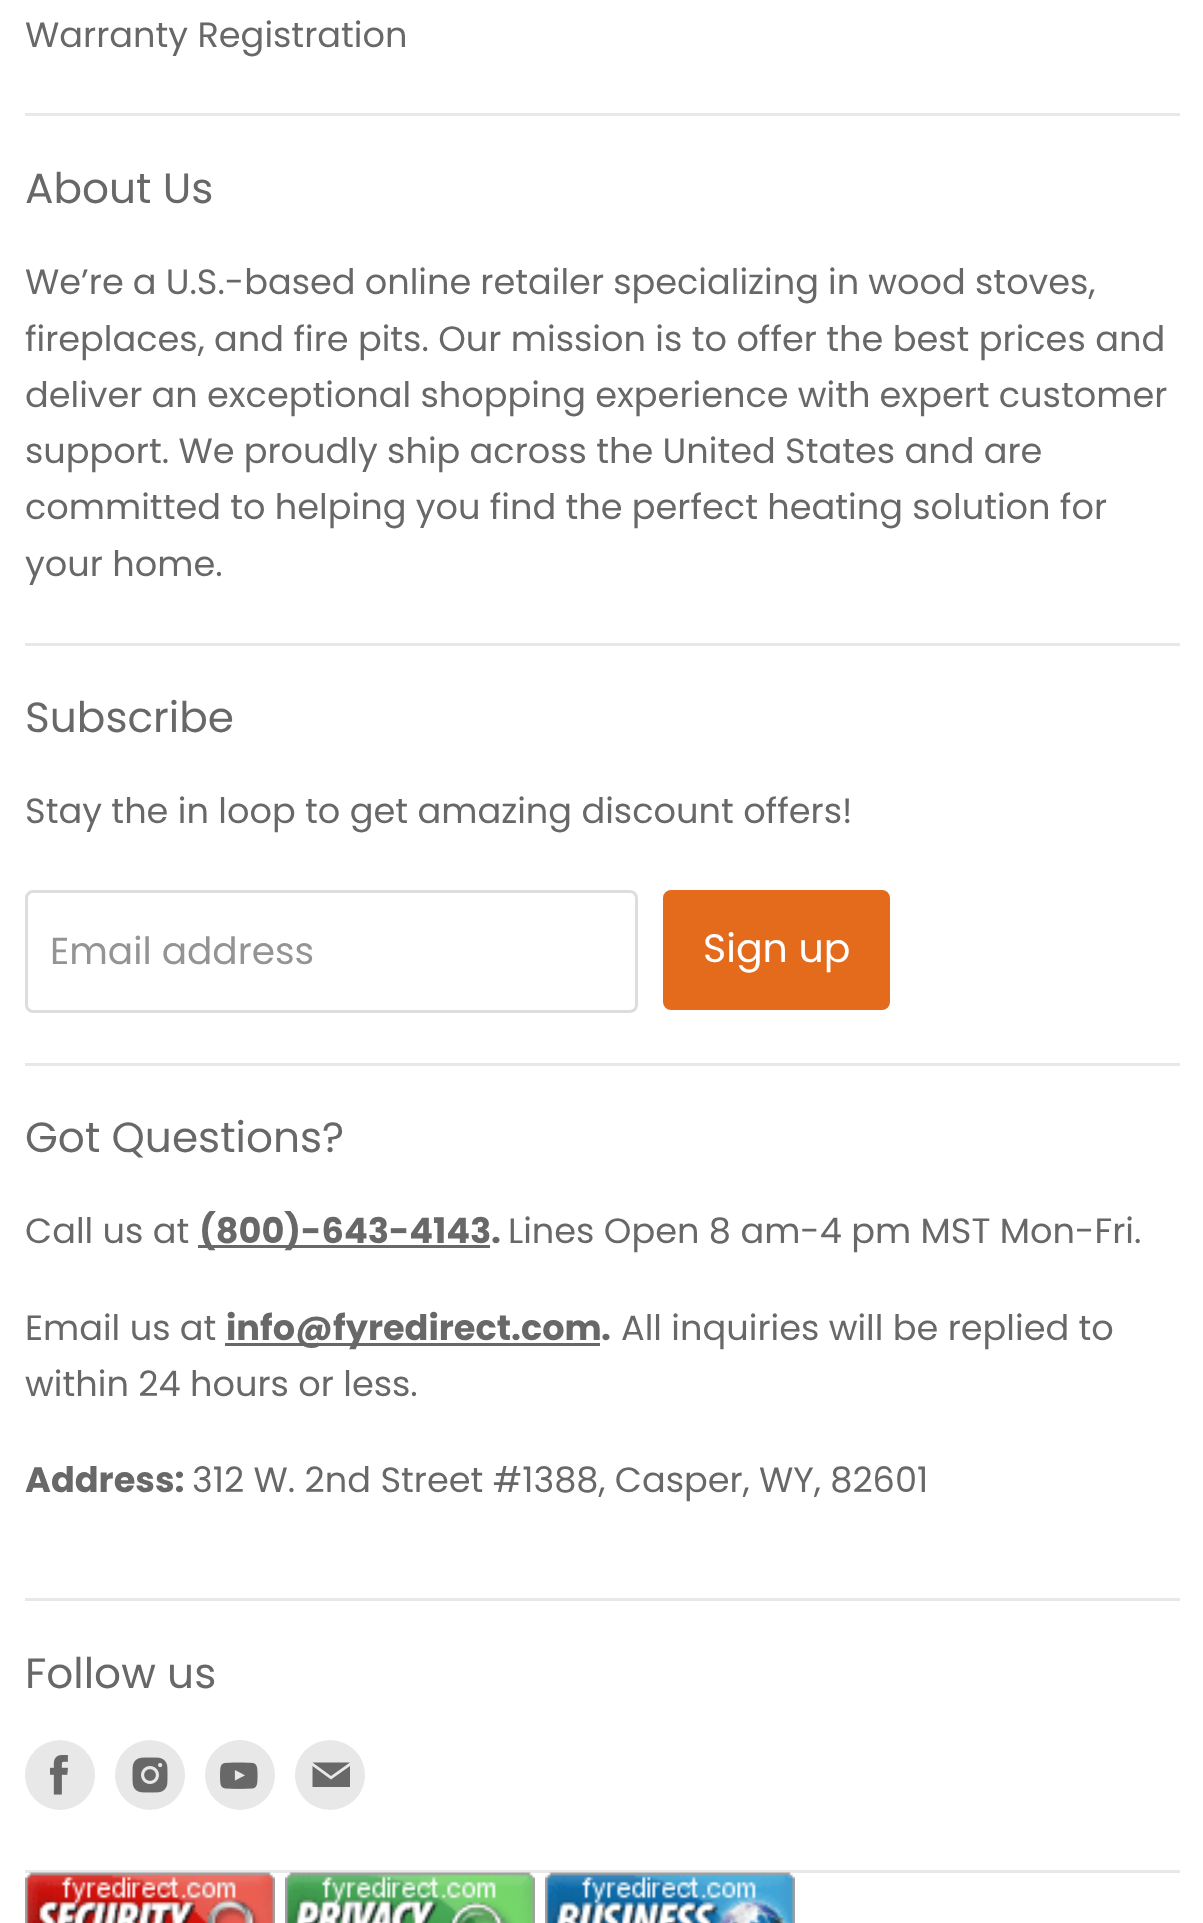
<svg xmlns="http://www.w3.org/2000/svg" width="1203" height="1923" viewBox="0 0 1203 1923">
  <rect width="100%" height="100%" fill="rgb(255,255,255)"/>
  <rect x="25" y="113" width="1155" height="3" fill="rgb(232,232,232)"/>
  <text x="25" y="47" font-family="Poppins" font-size="35.15" fill="rgb(104,104,104)">Warranty Registration</text>
  <rect x="25" y="643" width="1155" height="3" fill="rgb(232,232,232)"/>
  <text x="25" y="203" font-family="Poppins" font-size="42.25" fill="rgb(104,104,104)">About Us</text>
  <g font-family="Poppins" font-size="35.15" fill="rgb(104,104,104)">
    <text>
      <tspan x="25" y="294" word-spacing="-0.25">We’re a U.S.-based online retailer specializing in wood stoves,</tspan>
      <tspan x="25" y="351">fireplaces, and fire pits. Our mission is to offer the best prices and</tspan>
      <tspan x="25" y="407" word-spacing="-0.25">deliver an exceptional shopping experience with expert customer</tspan>
      <tspan x="25" y="463" word-spacing="-0.1">support. We proudly ship across the United States and are</tspan>
      <tspan x="25" y="519" word-spacing="-0.1">committed to helping you find the perfect heating solution for</tspan>
      <tspan x="25" y="576">your home.</tspan>
    </text>
  </g>
  <rect x="25" y="1063" width="1155" height="3" fill="rgb(232,232,232)"/>
  <text x="25" y="732" font-family="Poppins" font-size="42.25" fill="rgb(104,104,104)">Subscribe</text>
  <text x="25" y="823" font-family="Poppins" font-size="35.15" fill="rgb(104,104,104)">Stay the in loop to get amazing discount offers!</text>
  <rect x="26.5" y="891.5" width="610" height="120" rx="6.5" fill="none" stroke="rgb(221,221,221)" stroke-width="3"/>
  <text x="50" y="964" font-family="Poppins" font-size="37.5" fill="rgb(148,148,148)">Email address</text>
  <rect x="664.5" y="891.5" width="224" height="117" rx="6.5" fill="rgb(228,107,28)" stroke="rgb(228,107,28)" stroke-width="3"/>
  <text x="703" y="962" font-family="Poppins" font-size="39.5" fill="rgb(255,255,255)">Sign up</text>
  <rect x="25" y="1598" width="1155" height="3" fill="rgb(232,232,232)"/>
  <text x="25" y="1152" font-family="Poppins" font-size="42.25" fill="rgb(104,104,104)">Got Questions?</text>
  <text x="25" y="1243" font-family="Poppins" font-size="35.15" fill="rgb(104,104,104)">Call us at</text>
  <rect x="198" y="1245" width="292" height="3" fill="rgb(104,104,104)"/>
  <g font-family="Poppins" font-size="35.15" font-weight="bold" fill="rgb(104,104,104)">
    <text x="199" y="1243">(800)-643-4143</text>
    <text x="491" y="1243">.</text>
  </g>
  <g font-family="Poppins" font-size="35.15" fill="rgb(104,104,104)">
    <text x="508" y="1243">Lines Open 8 am-4 pm MST Mon-Fri.</text>
    <text x="25" y="1340">Email us at</text>
  </g>
  <rect x="225" y="1343" width="375" height="3" fill="rgb(104,104,104)"/>
  <g font-family="Poppins" font-size="35.15" font-weight="bold" fill="rgb(104,104,104)">
    <text x="226" y="1340">info@fyredirect.com</text>
    <text x="601" y="1340">.</text>
  </g>
  <g font-family="Poppins" font-size="35.15" fill="rgb(104,104,104)">
    <text x="621" y="1340">All inquiries will be replied to</text>
    <text x="25" y="1396">within 24 hours or less.</text>
  </g>
  <text x="25" y="1492" font-family="Poppins" font-size="35.15" font-weight="bold" fill="rgb(104,104,104)">Address:</text>
  <text x="192" y="1492" font-family="Poppins" font-size="35.15" fill="rgb(104,104,104)">312 W. 2nd Street #1388, Casper, WY, 82601</text>
  <rect x="25" y="1870" width="1155" height="3" fill="rgb(232,232,232)"/>
  <text x="25" y="1688" font-family="Poppins" font-size="42.25" fill="rgb(104,104,104)">Follow us</text>
  <circle cx="60" cy="1775" r="35" fill="rgb(232,232,232)"/>
  <image x="50" y="1755" width="18" height="40" href="pic1.png"/>
  <circle cx="150" cy="1775" r="35" fill="rgb(232,232,232)"/>
  <image x="132" y="1757" width="36" height="36" href="pic2.png"/>
  <circle cx="240" cy="1775" r="35" fill="rgb(232,232,232)"/>
  <image x="220" y="1762" width="38" height="27" href="pic3.png"/>
  <circle cx="330" cy="1775" r="35" fill="rgb(232,232,232)"/>
  <path d="M350 1762.5H312.5L331 1776ZM331 1779.5L312.5 1766V1787H350V1766Z" fill="rgb(104,104,104)" fill-rule="evenodd"/>
  <image x="25" y="1872" width="250" height="51" href="pic4.png"/>
  <image x="285" y="1872" width="250" height="51" href="pic5.png"/>
  <image x="545" y="1872" width="250" height="51" href="pic6.png"/>
</svg>
